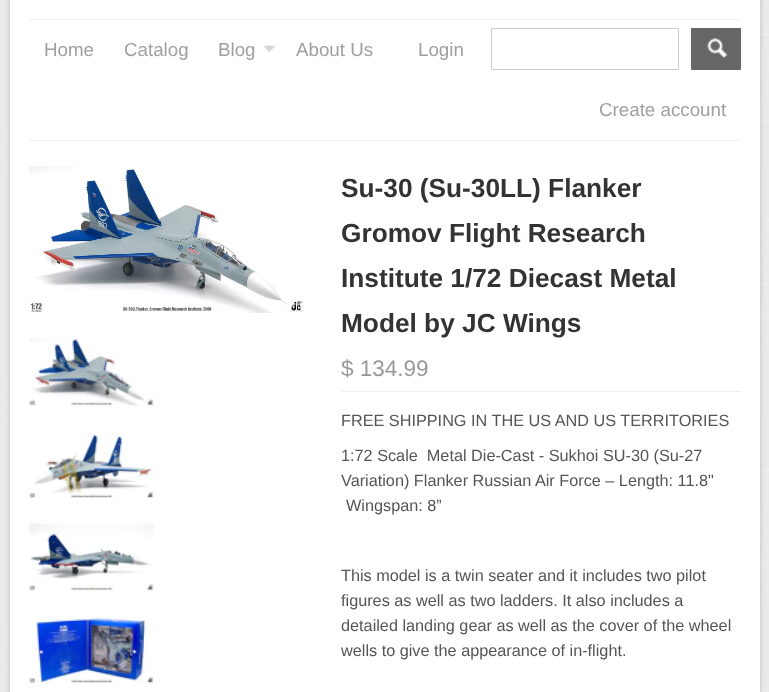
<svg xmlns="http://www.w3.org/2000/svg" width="769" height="692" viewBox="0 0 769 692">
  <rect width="100%" height="100%" fill="rgb(255,255,255)"/>
  <image x="0" y="0" width="769" height="692" href="pic1.png"/>
  <rect x="10" y="-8" width="750" height="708" fill="rgba(0,0,0,0.2)" filter="blur(2.5px)"/>
  <rect x="10" y="0" width="750" height="692" fill="rgb(255,255,255)"/>
  <rect x="29" y="19" width="712" height="1" fill="rgb(240,240,240)"/>
  <rect x="29" y="140" width="712" height="1" fill="rgb(240,240,240)"/>
  <g font-family="Liberation Sans" font-size="18.75" fill="rgb(159,159,159)">
    <text x="44" y="56">Home</text>
    <text x="124" y="56">Catalog</text>
  </g>
  <image x="263" y="45" width="12" height="7" href="pic2.png"/>
  <g font-family="Liberation Sans" font-size="18.75" fill="rgb(159,159,159)">
    <text x="218" y="56">Blog</text>
    <text x="296" y="56">About Us</text>
    <text x="418" y="56">Login</text>
  </g>
  <rect x="491.5" y="28.5" width="187" height="41" rx="0.5" fill="none" stroke="rgb(204,204,204)"/>
  <rect x="691" y="28" width="50" height="42" rx="1" fill="rgb(102,102,102)"/>
  <image x="707" y="38" width="21" height="21" href="pic3.png"/>
  <text x="599" y="116" font-family="Liberation Sans" font-size="18.75" fill="rgb(159,159,159)">Create account</text>
  <image x="29" y="166" width="274" height="147" href="pic4.png"/>
  <image x="29" y="338" width="125" height="68" href="pic5.png"/>
  <image x="29" y="431" width="125" height="67" href="pic6.png"/>
  <image x="29" y="523" width="125" height="68" href="pic7.png"/>
  <image x="29" y="616" width="125" height="67" href="pic8.png"/>
  <g font-family="Liberation Sans" font-size="26.25" font-weight="bold" fill="rgb(51,51,51)">
    <text>
      <tspan x="341" y="197">Su-30 (Su-30LL) Flanker</tspan>
      <tspan x="341" y="242">Gromov Flight Research</tspan>
      <tspan x="341" y="287">Institute 1/72 Diecast Metal</tspan>
      <tspan x="341" y="332">Model by JC Wings</tspan>
    </text>
  </g>
  <rect x="341" y="391" width="400" height="1" fill="rgb(240,240,240)"/>
  <text x="341" y="376" font-family="Liberation Sans" font-size="22.5" fill="rgb(153,153,153)">$ 134.99</text>
  <g font-family="Liberation Sans" font-size="16.25" fill="rgb(85,85,85)">
    <text x="341" y="426">FREE SHIPPING IN THE US AND US TERRITORIES</text>
    <text xml:space="preserve"><tspan x="341" y="461">1:72 Scale  Metal Die-Cast - Sukhoi SU-30 (Su-27</tspan><tspan x="341" y="486">Variation) Flanker Russian Air Force – Length: 11.8"</tspan></text>
    <text x="346" y="511">Wingspan: 8”</text>
    <text>
      <tspan x="341" y="581">This model is a twin seater and it includes two pilot</tspan>
      <tspan x="341" y="606">figures as well as two ladders. It also includes a</tspan>
      <tspan x="341" y="631">detailed landing gear as well as the cover of the wheel</tspan>
      <tspan x="341" y="656">wells to give the appearance of in-flight.</tspan>
    </text>
  </g>
</svg>
